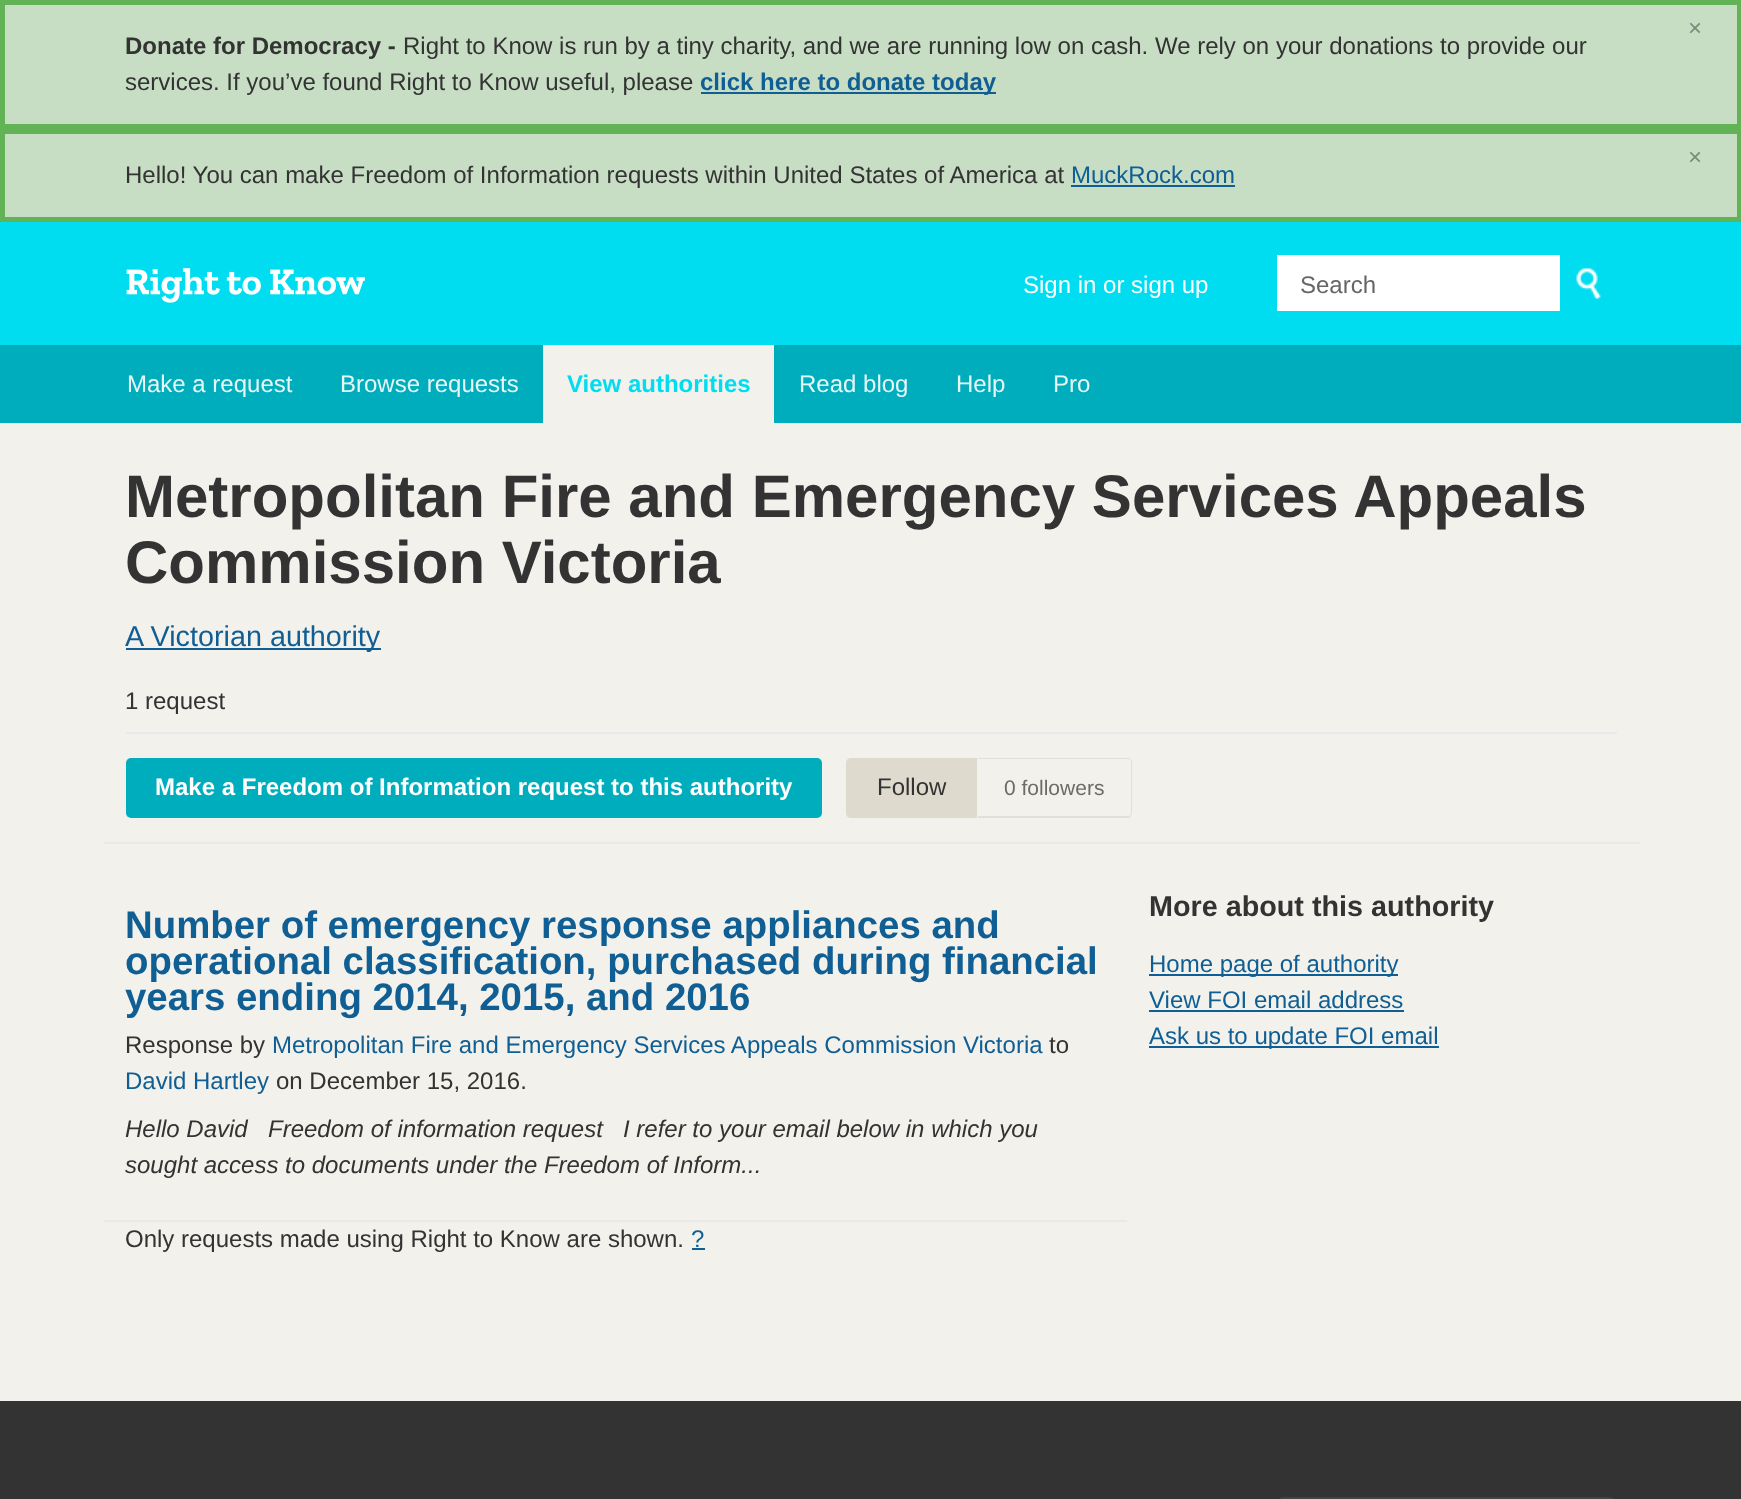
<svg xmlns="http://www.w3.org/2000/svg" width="1741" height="1499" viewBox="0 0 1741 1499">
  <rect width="100%" height="100%" fill="rgb(243,241,235)"/>
  <rect x="2.5" y="2.5" width="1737" height="124" fill="rgb(199,222,196)" stroke="rgb(98,179,86)" stroke-width="5"/>
  <text x="1688" y="36" font-family="Liberation Sans" font-size="24" fill="rgb(125,137,124)">×</text>
  <text x="125" y="54" font-family="Liberation Sans" font-size="24" font-weight="bold" fill="rgb(51,51,51)">Donate for Democracy -</text>
  <g font-family="Liberation Sans" font-size="24" fill="rgb(51,51,51)">
    <text x="403" y="54">Right to Know is run by a tiny charity, and we are running low on cash. We rely on your donations to provide our</text>
    <text x="125" y="90">services. If you’ve found Right to Know useful, please</text>
  </g>
  <rect x="701" y="92" width="295" height="2" fill="rgb(15,94,148)"/>
  <text x="700" y="90" font-family="Liberation Sans" font-size="24" font-weight="bold" fill="rgb(15,94,148)">click here to donate today</text>
  <rect x="2.5" y="131.5" width="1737" height="88" fill="rgb(199,222,196)" stroke="rgb(98,179,86)" stroke-width="5"/>
  <text x="1688" y="165" font-family="Liberation Sans" font-size="24" fill="rgb(125,137,124)">×</text>
  <text x="125" y="183" font-family="Liberation Sans" font-size="24" fill="rgb(51,51,51)">Hello! You can make Freedom of Information requests within United States of America at</text>
  <text x="1071" y="183" font-family="Liberation Sans" font-size="24" fill="rgb(15,94,148)">MuckRock.com</text>
  <rect x="1071" y="185" width="164" height="2" fill="rgb(15,94,148)"/>
  <rect x="0" y="222" width="1741" height="123" fill="rgb(0,220,240)"/>
  <image x="126" y="268" width="239" height="35" href="pic1.png"/>
  <text x="1023" y="293" font-family="Liberation Sans" font-size="24" fill="rgb(255,255,255)">Sign in or sign up</text>
  <rect x="1277" y="255" width="283" height="56" fill="rgb(255,255,255)"/>
  <text x="1300" y="293" font-family="Liberation Sans" font-size="24" fill="rgb(102,102,102)">Search</text>
  <image x="1576" y="268" width="25" height="31" href="pic2.png"/>
  <rect x="0" y="345" width="1741" height="78" fill="rgb(0,173,189)"/>
  <g font-family="Liberation Sans" font-size="24" fill="rgb(230,247,248)">
    <text x="127" y="392">Make a request</text>
    <text x="340" y="392">Browse requests</text>
  </g>
  <rect x="543" y="345" width="231" height="78" fill="rgb(243,241,235)"/>
  <text x="567" y="392" font-family="Liberation Sans" font-size="24" font-weight="bold" fill="rgb(0,220,240)">View authorities</text>
  <g font-family="Liberation Sans" font-size="24" fill="rgb(230,247,248)">
    <text x="799" y="392">Read blog</text>
    <text x="956" y="392">Help</text>
    <text x="1053" y="392">Pro</text>
  </g>
  <rect x="104" y="842" width="1536" height="2" fill="rgb(233,233,233)"/>
  <g font-family="Liberation Sans" font-size="60" font-weight="bold" fill="rgb(51,51,51)">
    <text>
      <tspan x="125" y="517">Metropolitan Fire and Emergency Services Appeals</tspan>
      <tspan x="125" y="583">Commission Victoria</tspan>
    </text>
  </g>
  <rect x="126" y="648" width="255" height="2" fill="rgb(15,94,148)"/>
  <text x="125" y="646" font-family="Liberation Sans" font-size="28.75" fill="rgb(15,94,148)">A Victorian authority</text>
  <text x="125" y="709" font-family="Liberation Sans" font-size="24" fill="rgb(51,51,51)">1 request</text>
  <rect x="126" y="732" width="1491" height="2" fill="rgb(233,233,233)"/>
  <rect x="126" y="758" width="696" height="60" rx="5" fill="rgb(0,173,189)"/>
  <text x="155" y="795" font-family="Liberation Sans" font-size="24" font-weight="bold" fill="rgb(255,255,255)">Make a Freedom of Information request to this authority</text>
  <path d="M851 758H977V818H851C848 818 846 816 846 813V763C846 760 848 758 851 758Z" fill="rgb(222,218,205)"/>
  <text x="877" y="795" font-family="Liberation Sans" font-size="24" fill="rgb(51,51,51)">Follow</text>
  <path d="M978 758H1128C1130 758 1132 760 1132 762V813C1132 815 1130 818 1128 818H978ZM978 759H1128C1130 759 1131 760 1131 762V813C1131 815 1130 816 1128 816H978Z" fill="rgb(226,223,217)" fill-rule="evenodd"/>
  <text x="1004" y="795" font-family="Liberation Sans" font-size="21" fill="rgb(108,107,104)">0 followers</text>
  <rect x="104" y="1220" width="1023" height="2" fill="rgb(233,233,233)"/>
  <g font-family="Liberation Sans" font-size="38.4" font-weight="bold" fill="rgb(15,94,148)">
    <text>
      <tspan x="125" y="938">Number of emergency response appliances and</tspan>
      <tspan x="125" y="974">operational classification, purchased during financial</tspan>
      <tspan x="125" y="1010">years ending 2014, 2015, and 2016</tspan>
    </text>
  </g>
  <text x="125" y="1053" font-family="Liberation Sans" font-size="24" fill="rgb(51,51,51)">Response by</text>
  <text x="272" y="1053" font-family="Liberation Sans" font-size="24" fill="rgb(15,94,148)">Metropolitan Fire and Emergency Services Appeals Commission Victoria</text>
  <text x="1049" y="1053" font-family="Liberation Sans" font-size="24" fill="rgb(51,51,51)">to</text>
  <text x="125" y="1089" font-family="Liberation Sans" font-size="24" fill="rgb(15,94,148)">David Hartley</text>
  <text x="276" y="1089" font-family="Liberation Sans" font-size="24" fill="rgb(51,51,51)">on December 15, 2016.</text>
  <g font-family="Liberation Sans" font-size="24" font-style="italic" fill="rgb(51,51,51)">
    <text x="125" y="1137">Hello David</text>
    <text x="268" y="1137">Freedom of information request</text>
    <text x="623" y="1137">I refer to your email below in which you</text>
    <text x="125" y="1173">sought access to documents under the Freedom of Inform...</text>
  </g>
  <text x="125" y="1247" font-family="Liberation Sans" font-size="24" fill="rgb(51,51,51)">Only requests made using Right to Know are shown.</text>
  <text x="691" y="1247" font-family="Liberation Sans" font-size="24" fill="rgb(15,94,148)">?</text>
  <rect x="692" y="1248" width="13" height="2" fill="rgb(15,94,148)"/>
  <text x="1149" y="916" font-family="Liberation Sans" font-size="28.75" font-weight="bold" fill="rgb(51,51,51)">More about this authority</text>
  <rect x="1149" y="974" width="249" height="2" fill="rgb(15,94,148)"/>
  <g font-family="Liberation Sans" font-size="24" fill="rgb(15,94,148)">
    <text>
      <tspan x="1149" y="972">Home page of authority</tspan>
      <tspan x="1149" y="1008">View FOI email address</tspan>
    </text>
  </g>
  <rect x="1149" y="1010" width="255" height="2" fill="rgb(15,94,148)"/>
  <rect x="1149" y="1046" width="290" height="2" fill="rgb(15,94,148)"/>
  <text x="1149" y="1044" font-family="Liberation Sans" font-size="24" fill="rgb(15,94,148)">Ask us to update FOI email</text>
  <rect x="0" y="1401" width="1741" height="98" fill="rgb(51,51,51)"/>
  <rect x="1277" y="1497" width="339" height="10" rx="8" fill="rgb(67,67,67)"/>
</svg>
